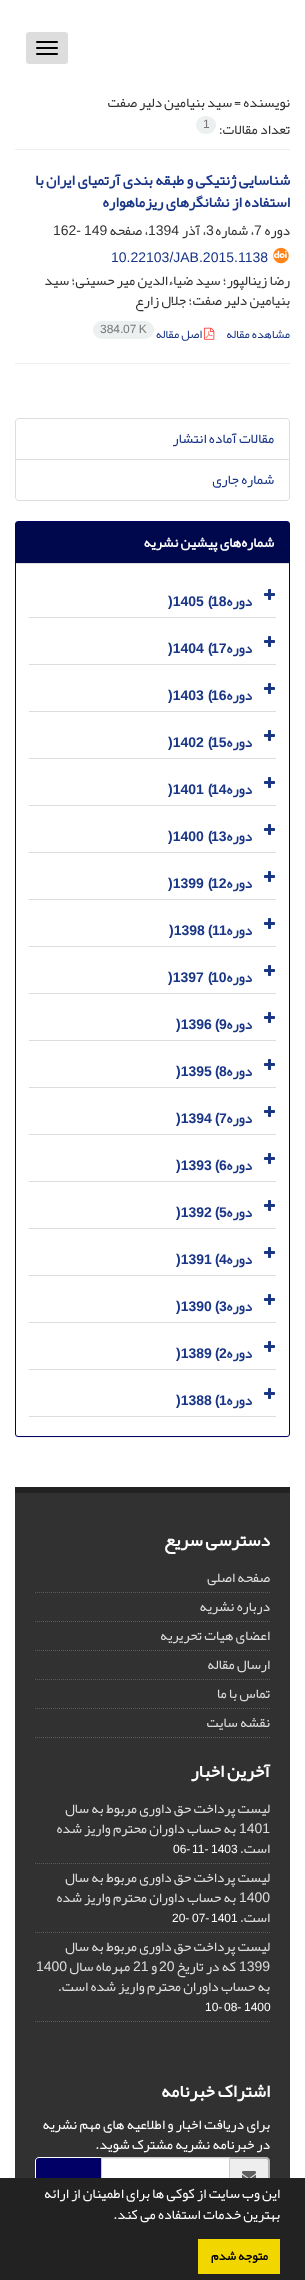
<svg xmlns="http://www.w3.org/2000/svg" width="305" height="2280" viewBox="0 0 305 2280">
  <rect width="100%" height="100%" fill="rgb(255,255,255)"/>
  <rect x="25.5" y="31.5" width="43" height="33" rx="3.5" fill="rgb(221,221,221)" stroke="rgb(255,255,255)"/>
  <rect x="36" y="41" width="22" height="2" rx="1" fill="rgb(0,0,0)"/>
  <rect x="36" y="47" width="22" height="2" rx="1" fill="rgb(0,0,0)"/>
  <rect x="36" y="53" width="22" height="2" rx="1" fill="rgb(0,0,0)"/>
  <g font-family="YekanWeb" font-size="14" direction="rtl" fill="rgb(51,51,51)">
    <text x="290" y="107">نویسنده =</text>
    <text x="232" y="107">سید بنیامین</text>
    <text x="162" y="107">دلیر صفت</text>
  </g>
  <rect x="15" y="149" width="275" height="1" fill="rgb(238,238,238)"/>
  <rect x="196" y="116" width="20" height="18" rx="9" fill="rgb(236,240,241)"/>
  <text x="203" y="128" font-family="Liberation Sans" font-size="12" fill="rgb(119,119,119)">1</text>
  <text x="290" y="134" font-family="YekanWeb" font-size="14" direction="rtl" fill="rgb(51,51,51)">تعداد مقالات:</text>
  <g font-family="YekanWeb" font-size="15" font-weight="bold" direction="rtl" fill="rgb(24,53,134)">
    <text>
      <tspan x="290" y="185">شناسایی ژنتیکی و طبقه بندی آرتمیای ایران با</tspan>
      <tspan x="290" y="207">استفاده از نشانگرهای ریزماهواره</tspan>
    </text>
  </g>
  <text x="290" y="235" font-family="YekanWeb" font-size="14" direction="rtl" fill="rgb(51,51,51)">دوره</text>
  <text x="254" y="235" font-family="Liberation Sans" font-size="14" fill="rgb(51,51,51)">7</text>
  <text x="254" y="235" font-family="YekanWeb" font-size="14" direction="rtl" fill="rgb(51,51,51)">، شماره</text>
  <text x="206" y="235" font-family="Liberation Sans" font-size="14" fill="rgb(51,51,51)">3</text>
  <text x="206" y="235" font-family="YekanWeb" font-size="14" direction="rtl" fill="rgb(51,51,51)">، آذر</text>
  <text x="148" y="235" font-family="Liberation Sans" font-size="14" fill="rgb(51,51,51)">1394</text>
  <text x="148" y="235" font-family="YekanWeb" font-size="14" direction="rtl" fill="rgb(51,51,51)">، صفحه</text>
  <g font-family="Liberation Sans" font-size="14" fill="rgb(51,51,51)">
    <text x="84" y="235">149</text>
    <text x="53" y="235">162-</text>
  </g>
  <image x="273" y="247" width="16" height="17" href="pic1.png"/>
  <text x="111" y="262" font-family="Liberation Sans" font-size="14" fill="rgb(24,53,134)">10.22103/JAB.2015.1138</text>
  <g font-family="YekanWeb" font-size="14" direction="rtl" fill="rgb(51,51,51)">
    <text x="290" y="285">رضا</text>
    <text x="267" y="285">زینالپور؛ سید ضیاءالدین</text>
    <text x="135" y="285">میر حسینی؛ سید</text>
    <text x="290" y="305">بنیامین</text>
    <text x="247" y="305">دلیر صفت؛ جلال</text>
    <text x="159" y="305">زارع</text>
  </g>
  <text x="290" y="338" font-family="YekanWeb" font-size="12" direction="rtl" fill="rgb(24,53,134)">مشاهده مقاله</text>
  <image x="204" y="327" width="11" height="13" href="pic2.png"/>
  <text x="202" y="338" font-family="YekanWeb" font-size="12" direction="rtl" fill="rgb(24,53,134)">اصل مقاله</text>
  <rect x="93" y="321" width="61" height="18" rx="9" fill="rgb(236,240,241)"/>
  <text x="123" y="333" word-spacing="-1" font-family="Liberation Sans" font-size="12" fill="rgb(119,119,119)">07 K</text>
  <text x="120" y="333" font-family="YekanWeb" font-size="12" fill="rgb(119,119,119)">.</text>
  <text x="100" y="333" font-family="Liberation Sans" font-size="12" fill="rgb(119,119,119)">384</text>
  <rect x="15" y="363" width="275" height="1" fill="rgb(238,238,238)"/>
  <path d="M19 418.5H286C288 418.5 289.5 420 289.5 422V459.5H15.5V422C15.5 420 17 418.5 19 418.5Z" fill="none" stroke="rgb(221,221,221)"/>
  <text x="274" y="443" font-family="YekanWeb" font-size="14" direction="rtl" fill="rgb(24,53,134)">مقالات آماده انتشار</text>
  <path d="M15.5 459.5H289.5V497C289.5 499 288 500.5 286 500.5H19C17 500.5 15.5 499 15.5 497Z" fill="rgb(255,255,255)" stroke="rgb(221,221,221)"/>
  <text x="274" y="484" font-family="YekanWeb" font-size="14" direction="rtl" fill="rgb(24,53,134)">شماره جاری</text>
  <rect x="15" y="522" width="275" height="916" rx="3" fill="rgba(0,0,0,0.05)" filter="blur(0.5px)"/>
  <rect x="15.5" y="521.5" width="274" height="915" rx="2.5" fill="rgb(255,255,255)" stroke="rgb(0,0,102)"/>
  <rect x="16" y="522" width="273" height="41" fill="rgb(0,8,77)"/>
  <rect x="16" y="563" width="273" height="1" fill="rgb(221,221,221)"/>
  <text x="274" y="547" font-family="YekanWeb" font-size="14" font-weight="bold" direction="rtl" fill="rgb(255,255,255)">شماره‌های پیشین نشریه</text>
  <rect x="29" y="617" width="247" height="1" fill="rgb(221,221,221)"/>
  <image x="264" y="589" width="11" height="11" href="pic3.png"/>
  <text x="252" y="606" font-family="YekanWeb" font-size="14" font-weight="bold" direction="rtl" fill="rgb(24,53,134)">دوره</text>
  <g font-family="Liberation Sans" font-size="14" font-weight="bold" fill="rgb(24,53,134)">
    <text x="208" y="606">(</text>
    <text x="211" y="606">18</text>
    <text x="168" y="606">)1405</text>
  </g>
  <rect x="29" y="664" width="247" height="1" fill="rgb(221,221,221)"/>
  <image x="264" y="636" width="11" height="11" href="pic3.png"/>
  <text x="252" y="653" font-family="YekanWeb" font-size="14" font-weight="bold" direction="rtl" fill="rgb(24,53,134)">دوره</text>
  <g font-family="Liberation Sans" font-size="14" font-weight="bold" fill="rgb(24,53,134)">
    <text x="208" y="653">(</text>
    <text x="211" y="653">17</text>
    <text x="168" y="653">)1404</text>
  </g>
  <rect x="29" y="711" width="247" height="1" fill="rgb(221,221,221)"/>
  <image x="264" y="683" width="11" height="11" href="pic3.png"/>
  <text x="252" y="700" font-family="YekanWeb" font-size="14" font-weight="bold" direction="rtl" fill="rgb(24,53,134)">دوره</text>
  <g font-family="Liberation Sans" font-size="14" font-weight="bold" fill="rgb(24,53,134)">
    <text x="208" y="700">(</text>
    <text x="211" y="700">16</text>
    <text x="168" y="700">)1403</text>
  </g>
  <rect x="29" y="758" width="247" height="1" fill="rgb(221,221,221)"/>
  <image x="264" y="730" width="11" height="11" href="pic3.png"/>
  <text x="252" y="747" font-family="YekanWeb" font-size="14" font-weight="bold" direction="rtl" fill="rgb(24,53,134)">دوره</text>
  <g font-family="Liberation Sans" font-size="14" font-weight="bold" fill="rgb(24,53,134)">
    <text x="208" y="747">(</text>
    <text x="211" y="747">15</text>
    <text x="168" y="747">)1402</text>
  </g>
  <rect x="29" y="805" width="247" height="1" fill="rgb(221,221,221)"/>
  <image x="264" y="777" width="11" height="11" href="pic3.png"/>
  <text x="252" y="794" font-family="YekanWeb" font-size="14" font-weight="bold" direction="rtl" fill="rgb(24,53,134)">دوره</text>
  <g font-family="Liberation Sans" font-size="14" font-weight="bold" fill="rgb(24,53,134)">
    <text x="208" y="794">(</text>
    <text x="211" y="794">14</text>
    <text x="168" y="794">)1401</text>
  </g>
  <rect x="29" y="852" width="247" height="1" fill="rgb(221,221,221)"/>
  <image x="264" y="824" width="11" height="11" href="pic3.png"/>
  <text x="252" y="841" font-family="YekanWeb" font-size="14" font-weight="bold" direction="rtl" fill="rgb(24,53,134)">دوره</text>
  <g font-family="Liberation Sans" font-size="14" font-weight="bold" fill="rgb(24,53,134)">
    <text x="208" y="841">(</text>
    <text x="211" y="841">13</text>
    <text x="168" y="841">)1400</text>
  </g>
  <rect x="29" y="899" width="247" height="1" fill="rgb(221,221,221)"/>
  <image x="264" y="871" width="11" height="11" href="pic3.png"/>
  <text x="252" y="888" font-family="YekanWeb" font-size="14" font-weight="bold" direction="rtl" fill="rgb(24,53,134)">دوره</text>
  <g font-family="Liberation Sans" font-size="14" font-weight="bold" fill="rgb(24,53,134)">
    <text x="208" y="888">(</text>
    <text x="211" y="888">12</text>
    <text x="168" y="888">)1399</text>
  </g>
  <rect x="29" y="946" width="247" height="1" fill="rgb(221,221,221)"/>
  <image x="264" y="918" width="11" height="11" href="pic3.png"/>
  <text x="252" y="935" font-family="YekanWeb" font-size="14" font-weight="bold" direction="rtl" fill="rgb(24,53,134)">دوره</text>
  <g font-family="Liberation Sans" font-size="14" font-weight="bold" fill="rgb(24,53,134)">
    <text x="208" y="935">(</text>
    <text x="212" y="935">11</text>
    <text x="169" y="935">)1398</text>
  </g>
  <rect x="29" y="993" width="247" height="1" fill="rgb(221,221,221)"/>
  <image x="264" y="965" width="11" height="11" href="pic3.png"/>
  <text x="252" y="982" font-family="YekanWeb" font-size="14" font-weight="bold" direction="rtl" fill="rgb(24,53,134)">دوره</text>
  <g font-family="Liberation Sans" font-size="14" font-weight="bold" fill="rgb(24,53,134)">
    <text x="208" y="982">(</text>
    <text x="211" y="982">10</text>
    <text x="168" y="982">)1397</text>
  </g>
  <rect x="29" y="1040" width="247" height="1" fill="rgb(221,221,221)"/>
  <image x="264" y="1012" width="11" height="11" href="pic3.png"/>
  <text x="252" y="1029" font-family="YekanWeb" font-size="14" font-weight="bold" direction="rtl" fill="rgb(24,53,134)">دوره</text>
  <g font-family="Liberation Sans" font-size="14" font-weight="bold" fill="rgb(24,53,134)">
    <text x="215" y="1029">(</text>
    <text x="219" y="1029">9</text>
    <text x="176" y="1029">)1396</text>
  </g>
  <rect x="29" y="1087" width="247" height="1" fill="rgb(221,221,221)"/>
  <image x="264" y="1059" width="11" height="11" href="pic3.png"/>
  <text x="252" y="1076" font-family="YekanWeb" font-size="14" font-weight="bold" direction="rtl" fill="rgb(24,53,134)">دوره</text>
  <g font-family="Liberation Sans" font-size="14" font-weight="bold" fill="rgb(24,53,134)">
    <text x="215" y="1076">(</text>
    <text x="219" y="1076">8</text>
    <text x="176" y="1076">)1395</text>
  </g>
  <rect x="29" y="1134" width="247" height="1" fill="rgb(221,221,221)"/>
  <image x="264" y="1106" width="11" height="11" href="pic3.png"/>
  <text x="252" y="1123" font-family="YekanWeb" font-size="14" font-weight="bold" direction="rtl" fill="rgb(24,53,134)">دوره</text>
  <g font-family="Liberation Sans" font-size="14" font-weight="bold" fill="rgb(24,53,134)">
    <text x="215" y="1123">(</text>
    <text x="219" y="1123">7</text>
    <text x="176" y="1123">)1394</text>
  </g>
  <rect x="29" y="1181" width="247" height="1" fill="rgb(221,221,221)"/>
  <image x="264" y="1153" width="11" height="11" href="pic3.png"/>
  <text x="252" y="1170" font-family="YekanWeb" font-size="14" font-weight="bold" direction="rtl" fill="rgb(24,53,134)">دوره</text>
  <g font-family="Liberation Sans" font-size="14" font-weight="bold" fill="rgb(24,53,134)">
    <text x="215" y="1170">(</text>
    <text x="219" y="1170">6</text>
    <text x="176" y="1170">)1393</text>
  </g>
  <rect x="29" y="1228" width="247" height="1" fill="rgb(221,221,221)"/>
  <image x="264" y="1200" width="11" height="11" href="pic3.png"/>
  <text x="252" y="1217" font-family="YekanWeb" font-size="14" font-weight="bold" direction="rtl" fill="rgb(24,53,134)">دوره</text>
  <g font-family="Liberation Sans" font-size="14" font-weight="bold" fill="rgb(24,53,134)">
    <text x="215" y="1217">(</text>
    <text x="219" y="1217">5</text>
    <text x="176" y="1217">)1392</text>
  </g>
  <rect x="29" y="1275" width="247" height="1" fill="rgb(221,221,221)"/>
  <image x="264" y="1247" width="11" height="11" href="pic3.png"/>
  <text x="252" y="1264" font-family="YekanWeb" font-size="14" font-weight="bold" direction="rtl" fill="rgb(24,53,134)">دوره</text>
  <g font-family="Liberation Sans" font-size="14" font-weight="bold" fill="rgb(24,53,134)">
    <text x="215" y="1264">(</text>
    <text x="219" y="1264">4</text>
    <text x="176" y="1264">)1391</text>
  </g>
  <rect x="29" y="1322" width="247" height="1" fill="rgb(221,221,221)"/>
  <image x="264" y="1294" width="11" height="11" href="pic3.png"/>
  <text x="252" y="1311" font-family="YekanWeb" font-size="14" font-weight="bold" direction="rtl" fill="rgb(24,53,134)">دوره</text>
  <g font-family="Liberation Sans" font-size="14" font-weight="bold" fill="rgb(24,53,134)">
    <text x="215" y="1311">(</text>
    <text x="219" y="1311">3</text>
    <text x="176" y="1311">)1390</text>
  </g>
  <rect x="29" y="1369" width="247" height="1" fill="rgb(221,221,221)"/>
  <image x="264" y="1341" width="11" height="11" href="pic3.png"/>
  <text x="252" y="1358" font-family="YekanWeb" font-size="14" font-weight="bold" direction="rtl" fill="rgb(24,53,134)">دوره</text>
  <g font-family="Liberation Sans" font-size="14" font-weight="bold" fill="rgb(24,53,134)">
    <text x="215" y="1358">(</text>
    <text x="219" y="1358">2</text>
    <text x="176" y="1358">)1389</text>
  </g>
  <rect x="29" y="1416" width="247" height="1" fill="rgb(221,221,221)"/>
  <image x="264" y="1388" width="11" height="11" href="pic3.png"/>
  <text x="252" y="1405" font-family="YekanWeb" font-size="14" font-weight="bold" direction="rtl" fill="rgb(24,53,134)">دوره</text>
  <g font-family="Liberation Sans" font-size="14" font-weight="bold" fill="rgb(24,53,134)">
    <text x="215" y="1405">(</text>
    <text x="219" y="1405">1</text>
    <text x="176" y="1405">)1388</text>
  </g>
  <rect x="15" y="1493" width="275" height="685" fill="rgb(49,49,49)"/>
  <rect x="15" y="1487" width="275" height="6" fill="rgb(34,34,34)"/>
  <text x="270" y="1546" font-family="YekanWeb" font-size="18" font-weight="bold" direction="rtl" fill="rgb(255,255,255)">دسترسی سریع</text>
  <path d="M35 1592.5H270" fill="none" stroke="rgb(90,90,90)" stroke-dasharray="1 1"/>
  <text x="270" y="1582" font-family="YekanWeb" font-size="14" direction="rtl" fill="rgb(221,221,221)">صفحه اصلی</text>
  <path d="M35 1621.5H270" fill="none" stroke="rgb(90,90,90)" stroke-dasharray="1 1"/>
  <text x="270" y="1611" font-family="YekanWeb" font-size="14" direction="rtl" fill="rgb(221,221,221)">درباره نشریه</text>
  <path d="M35 1650.5H270" fill="none" stroke="rgb(90,90,90)" stroke-dasharray="1 1"/>
  <text x="270" y="1640" font-family="YekanWeb" font-size="14" direction="rtl" fill="rgb(221,221,221)">اعضای هیات تحریریه</text>
  <path d="M35 1679.5H270" fill="none" stroke="rgb(90,90,90)" stroke-dasharray="1 1"/>
  <text x="270" y="1669" font-family="YekanWeb" font-size="14" direction="rtl" fill="rgb(221,221,221)">ارسال مقاله</text>
  <path d="M35 1708.5H270" fill="none" stroke="rgb(90,90,90)" stroke-dasharray="1 1"/>
  <text x="270" y="1698" font-family="YekanWeb" font-size="14" direction="rtl" fill="rgb(221,221,221)">تماس با ما</text>
  <path d="M35 1737.5H270" fill="none" stroke="rgb(90,90,90)" stroke-dasharray="1 1"/>
  <text x="270" y="1727" font-family="YekanWeb" font-size="14" direction="rtl" fill="rgb(221,221,221)">نقشه سایت</text>
  <text x="270" y="1777" font-family="YekanWeb" font-size="18" font-weight="bold" direction="rtl" fill="rgb(255,255,255)">آخرین اخبار</text>
  <path d="M35 1863.5H270" fill="none" stroke="rgb(90,90,90)" stroke-dasharray="1 1"/>
  <text x="270" y="1813" font-family="YekanWeb" font-size="14" direction="rtl" fill="rgb(221,221,221)">لیست پرداخت حق داوری مربوط به سال</text>
  <text x="239" y="1833" font-family="Liberation Sans" font-size="14" fill="rgb(221,221,221)">1401</text>
  <g font-family="YekanWeb" font-size="14" direction="rtl" fill="rgb(221,221,221)">
    <text x="236" y="1833">به حساب داوران محترم واریز شده</text>
    <text x="270" y="1853">است.</text>
  </g>
  <g font-family="Liberation Sans" font-size="12" fill="rgb(255,255,255)">
    <text x="211" y="1853">1403</text>
    <text x="192" y="1853">11-</text>
    <text x="173" y="1853">06-</text>
  </g>
  <path d="M35 1932.5H270" fill="none" stroke="rgb(90,90,90)" stroke-dasharray="1 1"/>
  <text x="270" y="1882" font-family="YekanWeb" font-size="14" direction="rtl" fill="rgb(221,221,221)">لیست پرداخت حق داوری مربوط به سال</text>
  <text x="239" y="1902" font-family="Liberation Sans" font-size="14" fill="rgb(221,221,221)">1400</text>
  <g font-family="YekanWeb" font-size="14" direction="rtl" fill="rgb(221,221,221)">
    <text x="236" y="1902">به حساب داوران محترم واریز شده</text>
    <text x="270" y="1922">است.</text>
  </g>
  <g font-family="Liberation Sans" font-size="12" fill="rgb(255,255,255)">
    <text x="211" y="1922">1401</text>
    <text x="192" y="1922">07-</text>
    <text x="172" y="1922">20-</text>
  </g>
  <path d="M35 2021.5H270" fill="none" stroke="rgb(90,90,90)" stroke-dasharray="1 1"/>
  <text x="270" y="1951" font-family="YekanWeb" font-size="14" direction="rtl" fill="rgb(221,221,221)">لیست پرداخت حق داوری مربوط به سال</text>
  <text x="239" y="1971" font-family="Liberation Sans" font-size="14" fill="rgb(221,221,221)">1399</text>
  <text x="236" y="1971" font-family="YekanWeb" font-size="14" direction="rtl" fill="rgb(221,221,221)">که در تاریخ</text>
  <text x="159" y="1971" font-family="Liberation Sans" font-size="14" fill="rgb(221,221,221)">20</text>
  <text x="157" y="1971" font-family="YekanWeb" font-size="14" direction="rtl" fill="rgb(221,221,221)">و</text>
  <text x="133" y="1971" font-family="Liberation Sans" font-size="14" fill="rgb(221,221,221)">21</text>
  <text x="130" y="1971" font-family="YekanWeb" font-size="14" direction="rtl" fill="rgb(221,221,221)">مهرماه سال</text>
  <text x="36" y="1971" font-family="Liberation Sans" font-size="14" fill="rgb(221,221,221)">1400</text>
  <text x="270" y="1991" font-family="YekanWeb" font-size="14" direction="rtl" fill="rgb(221,221,221)">به حساب داوران محترم واریز شده است.</text>
  <g font-family="Liberation Sans" font-size="12" fill="rgb(255,255,255)">
    <text x="244" y="2011">1400</text>
    <text x="224" y="2011">08-</text>
    <text x="205" y="2011">10-</text>
  </g>
  <text x="270" y="2097" font-family="YekanWeb" font-size="18" font-weight="bold" direction="rtl" fill="rgb(255,255,255)">اشتراک خبرنامه</text>
  <g font-family="YekanWeb" font-size="14" direction="rtl" fill="rgb(255,255,255)">
    <text>
      <tspan x="270" y="2129">برای دریافت اخبار و اطلاعیه های مهم نشریه</tspan>
      <tspan x="270" y="2149">در خبرنامه نشریه مشترک شوید.</tspan>
    </text>
  </g>
  <path d="M230 2157H266C268 2157 270 2159 270 2161V2193C270 2195 268 2197 266 2197H230Z" fill="rgb(238,238,238)"/>
  <path d="M230 2157H266C268 2157 270 2159 270 2161V2193C270 2195 268 2197 266 2197H230ZM230 2159H266C267 2159 268 2160 268 2161V2193C268 2194 267 2195 266 2195H230Z" fill="rgba(0,0,0,0.25)" fill-rule="evenodd"/>
  <image x="242" y="2171" width="14" height="7" href="pic4.png"/>
  <rect x="102" y="2159" width="127" height="19" fill="rgb(255,255,255)"/>
  <rect x="102" y="2158" width="127" height="1" fill="rgb(236,236,236)"/>
  <rect x="101.5" y="2157.5" width="128" height="39" fill="none" stroke="rgb(204,204,204)"/>
  <path d="M39 2157H101V2197H39C37 2197 35 2195 35 2193V2161C35 2159 37 2157 39 2157Z" fill="rgb(0,0,102)"/>
  <path d="M39 2157H101V2197H39C37 2197 35 2195 35 2193V2161C35 2159 37 2157 39 2157ZM39 2158H101V2196H39C37 2196 36 2195 36 2193V2161C36 2159 37 2158 39 2158Z" fill="rgb(255,255,255)" fill-rule="evenodd"/>
  <rect x="0" y="2178" width="305" height="102" fill="rgb(34,34,34)"/>
  <g font-family="YekanWeb" font-size="14" direction="rtl" fill="rgb(255,255,255)">
    <text>
      <tspan x="280" y="2198">این وب سایت از کوکی ها برای اطمینان از ارائه</tspan>
      <tspan x="280" y="2219">بهترین خدمات استفاده می کند.</tspan>
    </text>
  </g>
  <rect x="198" y="2239" width="82" height="35" fill="rgb(241,214,0)"/>
  <text x="268" y="2260" font-family="YekanWeb" font-size="12.5" font-weight="bold" direction="rtl" fill="rgb(0,0,0)">متوجه شدم</text>
</svg>
